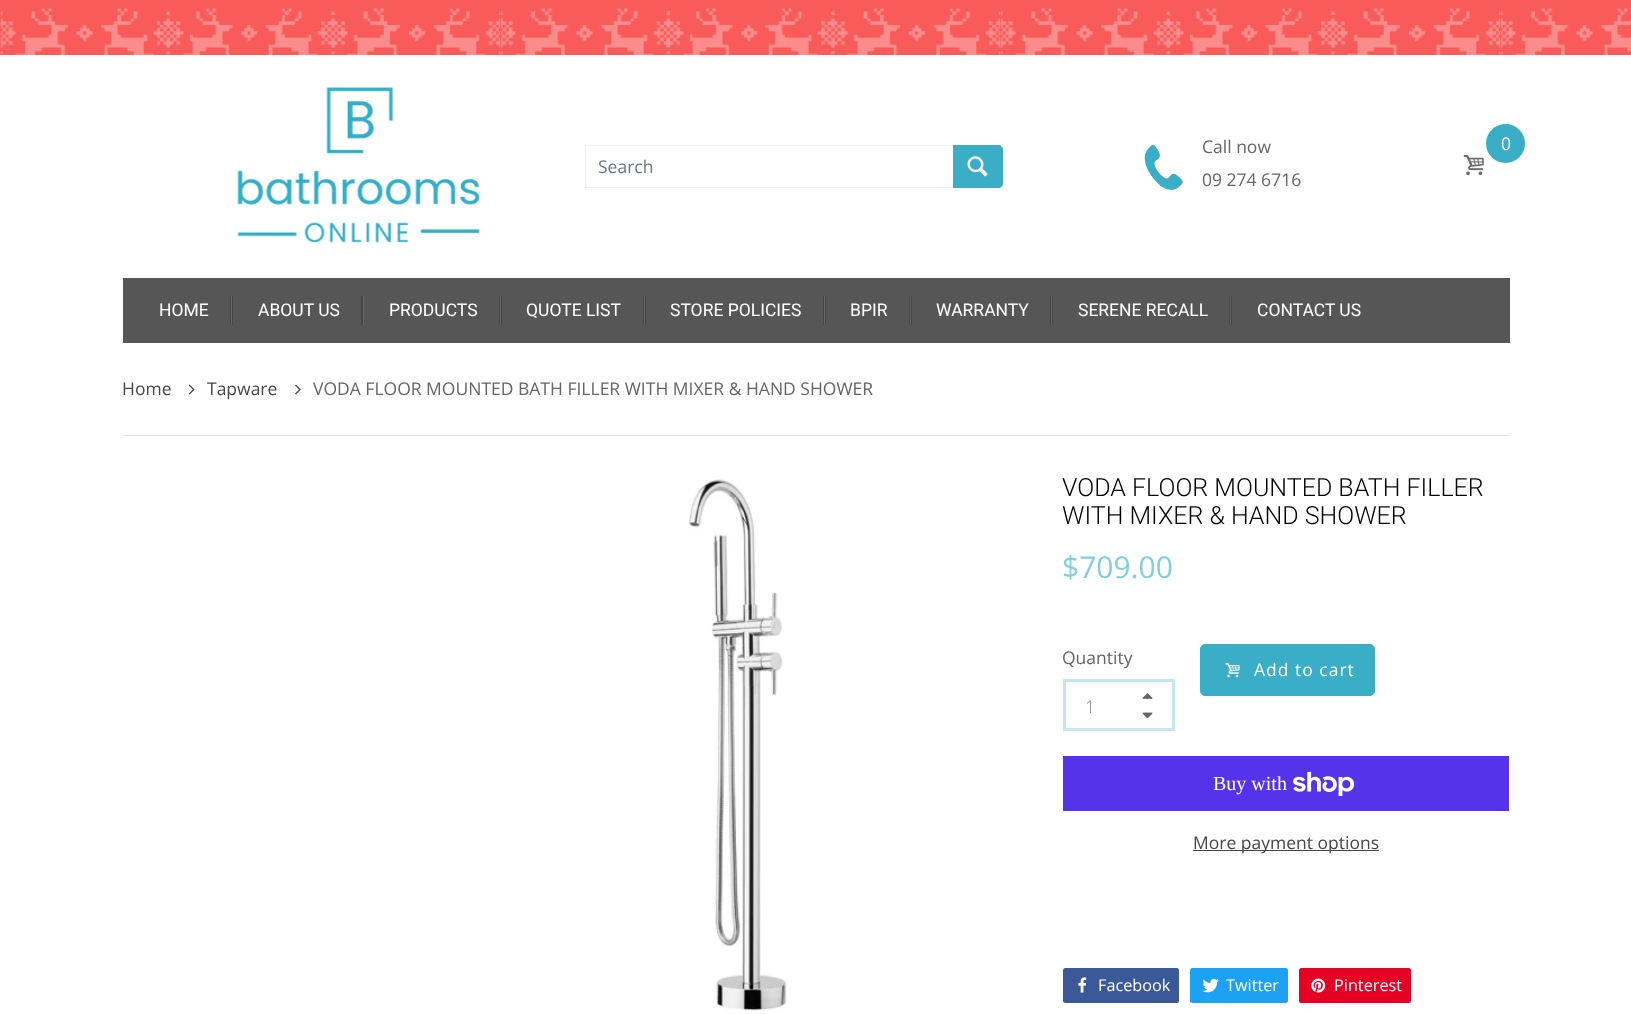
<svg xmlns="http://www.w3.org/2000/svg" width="1631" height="1014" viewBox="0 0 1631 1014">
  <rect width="100%" height="100%" fill="rgb(255,255,255)"/>
  <image x="0" y="0" width="1631" height="55" href="pic1.png"/>
  <text x="490" y="34" font-family="Liberation Sans" font-size="20" fill="rgb(250,103,103)">.</text>
  <image x="237" y="87" width="243" height="156" href="pic2.png"/>
  <rect x="585.5" y="145.5" width="415" height="42" fill="none" stroke="rgb(240,240,240)"/>
  <text x="598" y="173" font-family="Open Sans" font-size="17.5" fill="rgb(108,117,125)">Search</text>
  <path d="M953 145H998C1001 145 1003 147 1003 150V183C1003 186 1001 188 998 188H953Z" fill="rgb(58,174,199)"/>
  <image x="967" y="156" width="21" height="21" href="pic3.png"/>
  <image x="1144" y="145" width="39" height="45" href="pic4.png"/>
  <g font-family="Open Sans" font-size="17.5" fill="rgb(100,101,101)">
    <text>
      <tspan x="1202" y="153">Call now</tspan>
      <tspan x="1202" y="186">09 274 6716</tspan>
    </text>
  </g>
  <circle cx="1505.5" cy="143.5" r="19.5" fill="rgb(58,174,199)"/>
  <text x="1501" y="150" font-family="Open Sans" font-size="17.5" fill="rgb(255,255,255)">0</text>
  <image x="1463" y="155" width="21" height="21" href="pic5.png"/>
  <rect x="123" y="278" width="1387" height="65" fill="rgb(86,86,86)"/>
  <text x="159" y="316" font-family="Roboto" font-size="17.5" fill="rgb(255,255,255)">HOME</text>
  <rect x="230" y="296" width="3" height="29" fill="rgb(69,69,69)"/>
  <rect x="231" y="296" width="1" height="29" fill="rgb(103,103,103)"/>
  <text x="258" y="316" font-family="Roboto" font-size="17.5" fill="rgb(255,255,255)">ABOUT US</text>
  <rect x="361" y="296" width="2" height="29" fill="rgb(69,69,69)"/>
  <rect x="363" y="296" width="1" height="29" fill="rgb(103,103,103)"/>
  <text x="389" y="316" font-family="Roboto" font-size="17.5" fill="rgb(255,255,255)">PRODUCTS</text>
  <rect x="499" y="296" width="3" height="29" fill="rgb(69,69,69)"/>
  <rect x="500" y="296" width="1" height="29" fill="rgb(103,103,103)"/>
  <text x="526" y="316" font-family="Roboto" font-size="17.5" fill="rgb(255,255,255)">QUOTE LIST</text>
  <rect x="643" y="296" width="3" height="29" fill="rgb(69,69,69)"/>
  <rect x="644" y="296" width="1" height="29" fill="rgb(103,103,103)"/>
  <text x="670" y="316" font-family="Roboto" font-size="17.5" fill="rgb(255,255,255)">STORE POLICIES</text>
  <rect x="823" y="296" width="3" height="29" fill="rgb(69,69,69)"/>
  <rect x="824" y="296" width="1" height="29" fill="rgb(103,103,103)"/>
  <text x="850" y="316" font-family="Roboto" font-size="17.5" fill="rgb(255,255,255)">BPIR</text>
  <rect x="909" y="296" width="3" height="29" fill="rgb(69,69,69)"/>
  <rect x="910" y="296" width="1" height="29" fill="rgb(103,103,103)"/>
  <text x="936" y="316" font-family="Roboto" font-size="17.5" fill="rgb(255,255,255)">WARRANTY</text>
  <rect x="1050" y="296" width="3" height="29" fill="rgb(69,69,69)"/>
  <rect x="1051" y="296" width="1" height="29" fill="rgb(103,103,103)"/>
  <text x="1078" y="316" font-family="Roboto" font-size="17.5" fill="rgb(255,255,255)">SERENE RECALL</text>
  <rect x="1229" y="296" width="3" height="29" fill="rgb(69,69,69)"/>
  <rect x="1230" y="296" width="1" height="29" fill="rgb(103,103,103)"/>
  <text x="1257" y="316" font-family="Roboto" font-size="17.5" fill="rgb(255,255,255)">CONTACT US</text>
  <rect x="123" y="435" width="1387" height="1" fill="rgb(225,225,225)"/>
  <text x="122" y="395" font-family="Open Sans" font-size="17.5" fill="rgb(72,71,71)">Home</text>
  <image x="188" y="384" width="7" height="11" href="pic6.png"/>
  <text x="207" y="395" font-family="Open Sans" font-size="17.5" fill="rgb(72,71,71)">Tapware</text>
  <image x="295" y="384" width="6" height="11" href="pic7.png"/>
  <text x="313" y="395" font-family="Open Sans" font-size="17.5" fill="rgb(100,101,101)">VODA FLOOR MOUNTED BATH FILLER WITH MIXER &amp; HAND SHOWER</text>
  <image x="688" y="479" width="101" height="532" href="pic8.png"/>
  <g font-family="Roboto" font-size="25" font-weight="300" fill="rgb(0,0,0)">
    <text>
      <tspan x="1062" y="496">VODA FLOOR MOUNTED BATH FILLER</tspan>
      <tspan x="1062" y="524">WITH MIXER &amp; HAND SHOWER</tspan>
    </text>
  </g>
  <text x="1062" y="578" font-family="Open Sans" font-size="30" fill="rgb(129,207,220)">$709.00</text>
  <text x="1062" y="664" font-family="Open Sans" font-size="17.5" fill="rgb(100,101,101)">Quantity</text>
  <rect x="1064.5" y="680.5" width="109" height="49" fill="none" stroke="rgb(196,231,238)" stroke-width="3"/>
  <image x="1142" y="693" width="11" height="6" href="pic9.png"/>
  <text x="1085" y="713" font-family="Open Sans" font-size="17.5" font-weight="300" fill="rgb(136,136,136)">1</text>
  <image x="1142" y="712" width="11" height="7" href="pic10.png"/>
  <rect x="1200.5" y="644.5" width="174" height="51" rx="4.5" fill="rgb(58,174,199)" stroke="rgb(58,174,199)"/>
  <image x="1225" y="663" width="15" height="15" href="pic11.png"/>
  <text x="1254" y="676" font-family="Open Sans" font-size="17.5" letter-spacing="1" fill="rgb(255,255,255)">Add to cart</text>
  <rect x="1063" y="756" width="446" height="55" fill="rgb(84,51,235)"/>
  <text x="1213" y="790" font-family="Liberation Serif" font-size="20" fill="rgb(255,255,255)">Buy with</text>
  <image x="1293" y="771" width="62" height="25" href="pic12.png"/>
  <rect x="1193" y="850" width="186" height="1" fill="rgb(72,71,71)"/>
  <text x="1193" y="849" font-family="Open Sans" font-size="17.5" fill="rgb(72,71,71)">More payment options</text>
  <rect x="1063" y="968" width="116" height="35" rx="2.5" fill="rgb(59,89,152)"/>
  <image x="1078" y="977" width="9" height="16" href="pic13.png"/>
  <text x="1098" y="991" font-family="Open Sans" font-size="16.25" fill="rgb(255,255,255)">Facebook</text>
  <rect x="1190" y="968" width="98" height="35" rx="2.5" fill="rgb(29,161,242)"/>
  <image x="1202" y="978" width="17" height="15" href="pic14.png"/>
  <text x="1226" y="991" font-family="Open Sans" font-size="16.25" fill="rgb(255,255,255)">Twitter</text>
  <rect x="1299" y="968" width="112" height="35" rx="2.5" fill="rgb(230,0,35)"/>
  <image x="1311" y="978" width="15" height="15" href="pic15.png"/>
  <text x="1334" y="991" font-family="Open Sans" font-size="16.25" fill="rgb(255,255,255)">Pinterest</text>
</svg>
